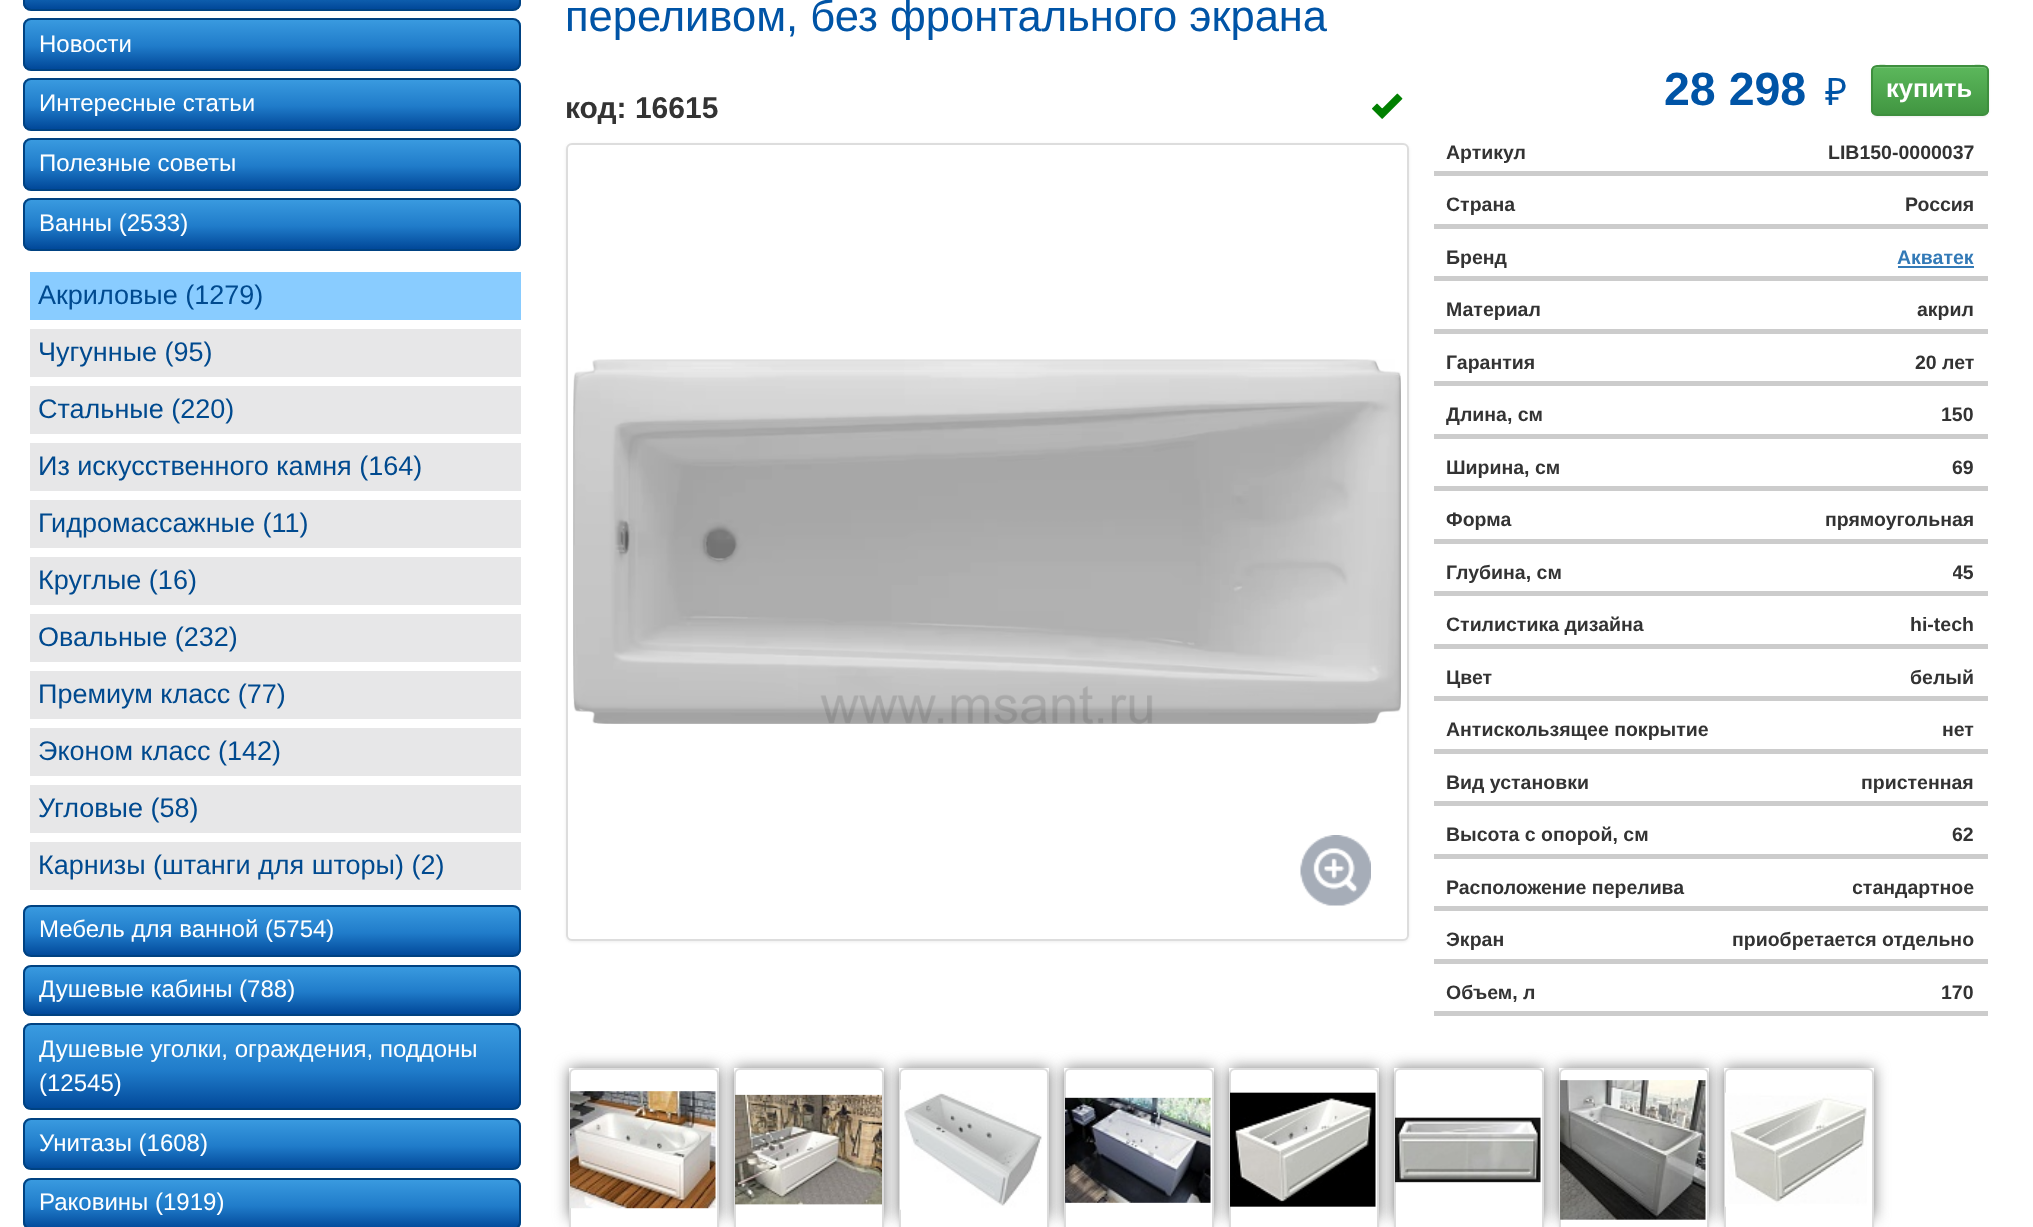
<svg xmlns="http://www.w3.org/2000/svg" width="2033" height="1227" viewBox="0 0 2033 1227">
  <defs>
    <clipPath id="clip1"><rect x="23" y="-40" width="498" height="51" rx="8"/></clipPath>
    <linearGradient id="g1" gradientUnits="userSpaceOnUse" x1="272" y1="-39" x2="272" y2="9"><stop offset="0" stop-color="rgb(58,155,224)"/><stop offset="0.54" stop-color="rgb(32,124,202)"/><stop offset="1" stop-color="rgb(1,72,153)"/></linearGradient>
    <clipPath id="clip2"><rect x="23" y="18" width="498" height="53" rx="8"/></clipPath>
    <linearGradient id="g2" gradientUnits="userSpaceOnUse" x1="272" y1="19" x2="272" y2="69"><stop offset="0" stop-color="rgb(58,155,224)"/><stop offset="0.54" stop-color="rgb(32,124,202)"/><stop offset="1" stop-color="rgb(1,72,153)"/></linearGradient>
    <clipPath id="clip3"><rect x="23" y="78" width="498" height="53" rx="8"/></clipPath>
    <linearGradient id="g3" gradientUnits="userSpaceOnUse" x1="272" y1="79" x2="272" y2="129"><stop offset="0" stop-color="rgb(58,155,224)"/><stop offset="0.54" stop-color="rgb(32,124,202)"/><stop offset="1" stop-color="rgb(1,72,153)"/></linearGradient>
    <clipPath id="clip4"><rect x="23" y="138" width="498" height="53" rx="8"/></clipPath>
    <linearGradient id="g4" gradientUnits="userSpaceOnUse" x1="272" y1="139" x2="272" y2="189"><stop offset="0" stop-color="rgb(58,155,224)"/><stop offset="0.54" stop-color="rgb(32,124,202)"/><stop offset="1" stop-color="rgb(1,72,153)"/></linearGradient>
    <clipPath id="clip5"><rect x="23" y="198" width="498" height="53" rx="8"/></clipPath>
    <linearGradient id="g5" gradientUnits="userSpaceOnUse" x1="272" y1="199" x2="272" y2="249"><stop offset="0" stop-color="rgb(58,155,224)"/><stop offset="0.54" stop-color="rgb(32,124,202)"/><stop offset="1" stop-color="rgb(1,72,153)"/></linearGradient>
    <clipPath id="clip6"><rect x="23" y="905" width="498" height="52" rx="8"/></clipPath>
    <linearGradient id="g6" gradientUnits="userSpaceOnUse" x1="272" y1="906" x2="272" y2="956"><stop offset="0" stop-color="rgb(58,155,224)"/><stop offset="0.54" stop-color="rgb(32,124,202)"/><stop offset="1" stop-color="rgb(1,72,153)"/></linearGradient>
    <clipPath id="clip7"><rect x="23" y="965" width="498" height="51" rx="8"/></clipPath>
    <linearGradient id="g7" gradientUnits="userSpaceOnUse" x1="272" y1="966" x2="272" y2="1014"><stop offset="0" stop-color="rgb(58,155,224)"/><stop offset="0.54" stop-color="rgb(32,124,202)"/><stop offset="1" stop-color="rgb(1,72,153)"/></linearGradient>
    <clipPath id="clip8"><rect x="23" y="1023" width="498" height="87" rx="8"/></clipPath>
    <linearGradient id="g8" gradientUnits="userSpaceOnUse" x1="272" y1="1025" x2="272" y2="1109"><stop offset="0" stop-color="rgb(58,155,224)"/><stop offset="0.54" stop-color="rgb(32,124,202)"/><stop offset="1" stop-color="rgb(1,72,153)"/></linearGradient>
    <clipPath id="clip9"><rect x="23" y="1118" width="498" height="52" rx="8"/></clipPath>
    <linearGradient id="g9" gradientUnits="userSpaceOnUse" x1="272" y1="1119" x2="272" y2="1169"><stop offset="0" stop-color="rgb(58,155,224)"/><stop offset="0.54" stop-color="rgb(32,124,202)"/><stop offset="1" stop-color="rgb(1,72,153)"/></linearGradient>
    <clipPath id="clip10"><rect x="23" y="1178" width="498" height="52" rx="8"/></clipPath>
    <linearGradient id="g10" gradientUnits="userSpaceOnUse" x1="272" y1="1179" x2="272" y2="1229"><stop offset="0" stop-color="rgb(58,155,224)"/><stop offset="0.54" stop-color="rgb(32,124,202)"/><stop offset="1" stop-color="rgb(1,72,153)"/></linearGradient>
    <clipPath id="clip11"><rect x="1871" y="65" width="118" height="51" rx="6"/></clipPath>
    <linearGradient id="g11" gradientUnits="userSpaceOnUse" x1="1930" y1="66" x2="1930" y2="114"><stop offset="0" stop-color="rgb(92,184,92)"/><stop offset="1" stop-color="rgb(65,150,65)"/></linearGradient>
    <clipPath id="clip12"><rect x="1953" y="558" width="21" height="26"/></clipPath>
    <clipPath id="clip13"><rect x="1853" y="873" width="121" height="26"/></clipPath>
    <clipPath id="clip14"><path d="M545 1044H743V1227H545ZM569 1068H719V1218H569Z" clip-rule="evenodd"/></clipPath>
    <clipPath id="clip15"><path d="M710 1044H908V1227H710ZM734 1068H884V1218H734Z" clip-rule="evenodd"/></clipPath>
    <clipPath id="clip16"><path d="M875 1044H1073V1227H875ZM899 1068H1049V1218H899Z" clip-rule="evenodd"/></clipPath>
    <clipPath id="clip17"><path d="M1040 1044H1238V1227H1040ZM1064 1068H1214V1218H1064Z" clip-rule="evenodd"/></clipPath>
    <clipPath id="clip18"><path d="M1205 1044H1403V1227H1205ZM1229 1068H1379V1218H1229Z" clip-rule="evenodd"/></clipPath>
    <clipPath id="clip19"><path d="M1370 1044H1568V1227H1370ZM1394 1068H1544V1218H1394Z" clip-rule="evenodd"/></clipPath>
    <clipPath id="clip20"><path d="M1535 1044H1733V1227H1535ZM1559 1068H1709V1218H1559Z" clip-rule="evenodd"/></clipPath>
    <clipPath id="clip21"><path d="M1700 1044H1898V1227H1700ZM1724 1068H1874V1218H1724Z" clip-rule="evenodd"/></clipPath>
  </defs>
  <rect width="100%" height="100%" fill="rgb(255,255,255)"/>
  <g clip-path="url(#clip1)">
    <rect x="23" y="0" width="498" height="9" fill="url(#g1)"/>
  </g>
  <rect x="24" y="-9" width="496" height="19" rx="7" fill="none" stroke="rgb(0,66,130)" stroke-width="2"/>
  <g clip-path="url(#clip2)">
    <rect x="23" y="20" width="498" height="49" fill="url(#g2)"/>
  </g>
  <rect x="24" y="19" width="496" height="51" rx="7" fill="none" stroke="rgb(0,66,130)" stroke-width="2"/>
  <text x="39" y="52" font-family="Liberation Sans" font-size="24" fill="rgb(255,255,255)">Новости</text>
  <g clip-path="url(#clip3)">
    <rect x="23" y="80" width="498" height="49" fill="url(#g3)"/>
  </g>
  <rect x="24" y="79" width="496" height="51" rx="7" fill="none" stroke="rgb(0,66,130)" stroke-width="2"/>
  <text x="39" y="111" font-family="Liberation Sans" font-size="24" fill="rgb(255,255,255)">Интересные статьи</text>
  <g clip-path="url(#clip4)">
    <rect x="23" y="140" width="498" height="49" fill="url(#g4)"/>
  </g>
  <rect x="24" y="139" width="496" height="51" rx="7" fill="none" stroke="rgb(0,66,130)" stroke-width="2"/>
  <text x="39" y="171" font-family="Liberation Sans" font-size="24" fill="rgb(255,255,255)">Полезные советы</text>
  <g clip-path="url(#clip5)">
    <rect x="23" y="200" width="498" height="49" fill="url(#g5)"/>
  </g>
  <rect x="24" y="199" width="496" height="51" rx="7" fill="none" stroke="rgb(0,66,130)" stroke-width="2"/>
  <text x="39" y="231" font-family="Liberation Sans" font-size="24" fill="rgb(255,255,255)">Ванны (2533)</text>
  <rect x="30" y="272" width="491" height="48" fill="rgb(137,204,255)"/>
  <text x="38" y="304" font-family="Liberation Sans" font-size="27" fill="rgb(0,74,143)">Акриловые (1279)</text>
  <rect x="30" y="329" width="491" height="48" fill="rgb(231,231,232)"/>
  <text x="38" y="361" font-family="Liberation Sans" font-size="27" fill="rgb(0,74,143)">Чугунные (95)</text>
  <rect x="30" y="386" width="491" height="48" fill="rgb(231,231,232)"/>
  <text x="38" y="418" font-family="Liberation Sans" font-size="27" fill="rgb(0,74,143)">Стальные (220)</text>
  <rect x="30" y="443" width="491" height="48" fill="rgb(231,231,232)"/>
  <text x="38" y="475" font-family="Liberation Sans" font-size="27" fill="rgb(0,74,143)">Из искусственного камня (164)</text>
  <rect x="30" y="500" width="491" height="48" fill="rgb(231,231,232)"/>
  <text x="38" y="532" font-family="Liberation Sans" font-size="27" fill="rgb(0,74,143)">Гидромассажные (11)</text>
  <rect x="30" y="557" width="491" height="48" fill="rgb(231,231,232)"/>
  <text x="38" y="589" font-family="Liberation Sans" font-size="27" fill="rgb(0,74,143)">Круглые (16)</text>
  <rect x="30" y="614" width="491" height="48" fill="rgb(231,231,232)"/>
  <text x="38" y="646" font-family="Liberation Sans" font-size="27" fill="rgb(0,74,143)">Овальные (232)</text>
  <rect x="30" y="671" width="491" height="48" fill="rgb(231,231,232)"/>
  <text x="38" y="703" font-family="Liberation Sans" font-size="27" fill="rgb(0,74,143)">Премиум класс (77)</text>
  <rect x="30" y="728" width="491" height="48" fill="rgb(231,231,232)"/>
  <text x="38" y="760" font-family="Liberation Sans" font-size="27" fill="rgb(0,74,143)">Эконом класс (142)</text>
  <rect x="30" y="785" width="491" height="48" fill="rgb(231,231,232)"/>
  <text x="38" y="817" font-family="Liberation Sans" font-size="27" fill="rgb(0,74,143)">Угловые (58)</text>
  <rect x="30" y="842" width="491" height="48" fill="rgb(231,231,232)"/>
  <text x="38" y="874" font-family="Liberation Sans" font-size="27" fill="rgb(0,74,143)">Карнизы (штанги для шторы) (2)</text>
  <g clip-path="url(#clip6)">
    <rect x="23" y="906" width="498" height="50" fill="url(#g6)"/>
  </g>
  <rect x="24" y="906" width="496" height="50" rx="7" fill="none" stroke="rgb(0,66,130)" stroke-width="2"/>
  <text x="39" y="937" font-family="Liberation Sans" font-size="24" fill="rgb(255,255,255)">Мебель для ванной (5754)</text>
  <g clip-path="url(#clip7)">
    <rect x="23" y="966" width="498" height="48" fill="url(#g7)"/>
  </g>
  <rect x="24" y="966" width="496" height="49" rx="7" fill="none" stroke="rgb(0,66,130)" stroke-width="2"/>
  <text x="39" y="997" font-family="Liberation Sans" font-size="24" fill="rgb(255,255,255)">Душевые кабины (788)</text>
  <g clip-path="url(#clip8)">
    <rect x="23" y="1025" width="498" height="84" fill="url(#g8)"/>
  </g>
  <rect x="24" y="1024" width="496" height="85" rx="7" fill="none" stroke="rgb(0,66,130)" stroke-width="2"/>
  <g font-family="Liberation Sans" font-size="24" fill="rgb(255,255,255)">
    <text>
      <tspan x="39" y="1057">Душевые уголки, ограждения, поддоны</tspan>
      <tspan x="39" y="1091">(12545)</tspan>
    </text>
  </g>
  <g clip-path="url(#clip9)">
    <rect x="23" y="1119" width="498" height="50" fill="url(#g9)"/>
  </g>
  <rect x="24" y="1119" width="496" height="50" rx="7" fill="none" stroke="rgb(0,66,130)" stroke-width="2"/>
  <text x="39" y="1151" font-family="Liberation Sans" font-size="24" fill="rgb(255,255,255)">Унитазы (1608)</text>
  <g clip-path="url(#clip10)">
    <rect x="23" y="1179" width="498" height="48" fill="url(#g10)"/>
  </g>
  <rect x="24" y="1179" width="496" height="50" rx="7" fill="none" stroke="rgb(0,66,130)" stroke-width="2"/>
  <text x="39" y="1210" font-family="Liberation Sans" font-size="24" fill="rgb(255,255,255)">Раковины (1919)</text>
  <text x="565" y="31" font-family="Liberation Sans" font-size="43.5" fill="rgb(0,84,166)">переливом, без фронтального экрана</text>
  <text x="565" y="118" font-family="Liberation Sans" font-size="30" font-weight="bold" fill="rgb(51,51,51)">код: 16615</text>
  <image x="1372" y="93" width="31" height="26" href="pic1.png"/>
  <rect x="566" y="144" width="843" height="798" rx="6" fill="rgba(0,0,0,0.07)" filter="blur(1.5px)"/>
  <rect x="567" y="144" width="841" height="796" rx="5" fill="rgb(255,255,255)" stroke="rgb(221,221,221)" stroke-width="2"/>
  <image x="573" y="359" width="828" height="365" href="pic2.png"/>
  <image x="1300" y="835" width="71" height="71" href="pic3.png"/>
  <text x="1664" y="105" font-family="Liberation Sans" font-size="46.5" font-weight="bold" fill="rgb(0,84,166)">28 298</text>
  <text x="1825" y="105" font-family="Noto Sans" font-size="38" fill="rgb(0,84,166)">₽</text>
  <rect x="1871" y="66" width="118" height="51" rx="6" fill="rgba(0,0,0,0.07)" filter="blur(1px)"/>
  <g clip-path="url(#clip11)">
    <rect x="1871" y="66" width="118" height="48" fill="url(#g11)"/>
  </g>
  <path d="M1876 68H1983C1985 68 1988 70 1988 72C1988 61 1970 66 1965 66H1895C1890 66 1872 61 1872 72C1872 70 1874 68 1876 68Z" fill="rgb(116,194,116)"/>
  <rect x="1872" y="66" width="116" height="49" rx="5" fill="none" stroke="rgb(62,143,62)" stroke-width="2"/>
  <text x="1886" y="97" font-family="Liberation Sans" font-size="25.5" font-weight="bold" fill="rgb(255,255,255)">купить</text>
  <rect x="1434" y="171" width="554" height="5" fill="rgb(204,204,204)"/>
  <g font-family="Liberation Sans" font-size="19.5" font-weight="bold" fill="rgb(51,51,51)">
    <text x="1446" y="159">Артикул</text>
    <text x="1828" y="159">LIB150-0000037</text>
  </g>
  <rect x="1434" y="224" width="554" height="5" fill="rgb(204,204,204)"/>
  <g font-family="Liberation Sans" font-size="19.5" font-weight="bold" fill="rgb(51,51,51)">
    <text x="1446" y="211">Страна</text>
    <text x="1905" y="211">Россия</text>
  </g>
  <rect x="1434" y="276" width="554" height="5" fill="rgb(204,204,204)"/>
  <text x="1446" y="264" font-family="Liberation Sans" font-size="19.5" font-weight="bold" fill="rgb(51,51,51)">Бренд</text>
  <text x="1897" y="264" font-family="Liberation Sans" font-size="19.5" font-weight="bold" fill="rgb(51,122,183)">Акватек</text>
  <rect x="1898" y="266" width="76" height="2" fill="rgb(51,122,183)"/>
  <rect x="1434" y="329" width="554" height="5" fill="rgb(204,204,204)"/>
  <g font-family="Liberation Sans" font-size="19.5" font-weight="bold" fill="rgb(51,51,51)">
    <text x="1446" y="316">Материал</text>
    <text x="1917" y="316">акрил</text>
  </g>
  <rect x="1434" y="381" width="554" height="5" fill="rgb(204,204,204)"/>
  <g font-family="Liberation Sans" font-size="19.5" font-weight="bold" fill="rgb(51,51,51)">
    <text x="1446" y="369">Гарантия</text>
    <text x="1915" y="369">20 лет</text>
  </g>
  <rect x="1434" y="434" width="554" height="5" fill="rgb(204,204,204)"/>
  <g font-family="Liberation Sans" font-size="19.5" font-weight="bold" fill="rgb(51,51,51)">
    <text x="1446" y="421">Длина, см</text>
    <text x="1941" y="421">150</text>
  </g>
  <rect x="1434" y="486" width="554" height="5" fill="rgb(204,204,204)"/>
  <g font-family="Liberation Sans" font-size="19.5" font-weight="bold" fill="rgb(51,51,51)">
    <text x="1446" y="474">Ширина, см</text>
    <text x="1952" y="474">69</text>
  </g>
  <rect x="1434" y="539" width="554" height="5" fill="rgb(204,204,204)"/>
  <g font-family="Liberation Sans" font-size="19.5" font-weight="bold" fill="rgb(51,51,51)">
    <text x="1446" y="526">Форма</text>
    <text x="1825" y="526">прямоугольная</text>
  </g>
  <rect x="1434" y="591" width="554" height="5" fill="rgb(204,204,204)"/>
  <text x="1446" y="579" font-family="Liberation Sans" font-size="19.5" font-weight="bold" fill="rgb(51,51,51)">Глубина, см</text>
  <g clip-path="url(#clip12)">
    <text x="1952" y="579" font-family="Liberation Sans" font-size="19.5" font-weight="bold" fill="rgb(51,51,51)">45</text>
  </g>
  <rect x="1434" y="644" width="554" height="5" fill="rgb(204,204,204)"/>
  <g font-family="Liberation Sans" font-size="19.5" font-weight="bold" fill="rgb(51,51,51)">
    <text x="1446" y="631">Стилистика дизайна</text>
    <text x="1910" y="631">hi-tech</text>
  </g>
  <rect x="1434" y="696" width="554" height="5" fill="rgb(204,204,204)"/>
  <g font-family="Liberation Sans" font-size="19.5" font-weight="bold" fill="rgb(51,51,51)">
    <text x="1446" y="684">Цвет</text>
    <text x="1910" y="684">белый</text>
  </g>
  <rect x="1434" y="749" width="554" height="5" fill="rgb(204,204,204)"/>
  <g font-family="Liberation Sans" font-size="19.5" font-weight="bold" fill="rgb(51,51,51)">
    <text x="1446" y="736">Антискользящее покрытие</text>
    <text x="1942" y="736">нет</text>
  </g>
  <rect x="1434" y="801" width="554" height="5" fill="rgb(204,204,204)"/>
  <g font-family="Liberation Sans" font-size="19.5" font-weight="bold" fill="rgb(51,51,51)">
    <text x="1446" y="789">Вид установки</text>
    <text x="1861" y="789">пристенная</text>
  </g>
  <rect x="1434" y="854" width="554" height="5" fill="rgb(204,204,204)"/>
  <g font-family="Liberation Sans" font-size="19.5" font-weight="bold" fill="rgb(51,51,51)">
    <text x="1446" y="841">Высота с опорой, см</text>
    <text x="1952" y="841">62</text>
  </g>
  <rect x="1434" y="906" width="554" height="5" fill="rgb(204,204,204)"/>
  <text x="1446" y="894" font-family="Liberation Sans" font-size="19.5" font-weight="bold" fill="rgb(51,51,51)">Расположение перелива</text>
  <g clip-path="url(#clip13)">
    <text x="1852" y="894" font-family="Liberation Sans" font-size="19.5" font-weight="bold" fill="rgb(51,51,51)">стандартное</text>
  </g>
  <rect x="1434" y="959" width="554" height="5" fill="rgb(204,204,204)"/>
  <g font-family="Liberation Sans" font-size="19.5" font-weight="bold" fill="rgb(51,51,51)">
    <text x="1446" y="946">Экран</text>
    <text x="1732" y="946">приобретается отдельно</text>
  </g>
  <rect x="1434" y="1011" width="554" height="5" fill="rgb(204,204,204)"/>
  <g font-family="Liberation Sans" font-size="19.5" font-weight="bold" fill="rgb(51,51,51)">
    <text x="1446" y="999">Объем, л</text>
    <text x="1941" y="999">170</text>
  </g>
  <g clip-path="url(#clip14)">
    <rect x="569" y="1068" width="150" height="150" fill="rgb(128,128,128)" filter="blur(7.5px)"/>
  </g>
  <rect x="569" y="1070" width="150" height="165" rx="6" fill="rgba(0,0,0,0.07)" filter="blur(1.5px)"/>
  <rect x="570" y="1069" width="148" height="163" rx="5" fill="rgb(255,255,255)" stroke="rgb(221,221,221)" stroke-width="2"/>
  <image x="570" y="1091" width="146" height="118" href="pic4.png"/>
  <g clip-path="url(#clip15)">
    <rect x="734" y="1068" width="150" height="150" fill="rgb(128,128,128)" filter="blur(7.5px)"/>
  </g>
  <rect x="734" y="1070" width="150" height="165" rx="6" fill="rgba(0,0,0,0.07)" filter="blur(1.5px)"/>
  <rect x="735" y="1069" width="148" height="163" rx="5" fill="rgb(255,255,255)" stroke="rgb(221,221,221)" stroke-width="2"/>
  <image x="735" y="1094" width="147" height="111" href="pic5.png"/>
  <g clip-path="url(#clip16)">
    <rect x="899" y="1068" width="150" height="150" fill="rgb(128,128,128)" filter="blur(7.5px)"/>
  </g>
  <rect x="899" y="1070" width="150" height="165" rx="6" fill="rgba(0,0,0,0.07)" filter="blur(1.5px)"/>
  <rect x="900" y="1069" width="148" height="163" rx="5" fill="rgb(255,255,255)" stroke="rgb(221,221,221)" stroke-width="2"/>
  <image x="900" y="1089" width="142" height="121" href="pic6.png"/>
  <g clip-path="url(#clip17)">
    <rect x="1064" y="1068" width="150" height="150" fill="rgb(128,128,128)" filter="blur(7.5px)"/>
  </g>
  <rect x="1064" y="1070" width="150" height="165" rx="6" fill="rgba(0,0,0,0.07)" filter="blur(1.5px)"/>
  <rect x="1065" y="1069" width="148" height="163" rx="5" fill="rgb(255,255,255)" stroke="rgb(221,221,221)" stroke-width="2"/>
  <image x="1065" y="1097" width="146" height="106" href="pic7.png"/>
  <g clip-path="url(#clip18)">
    <rect x="1229" y="1068" width="150" height="150" fill="rgb(128,128,128)" filter="blur(7.5px)"/>
  </g>
  <rect x="1229" y="1070" width="150" height="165" rx="6" fill="rgba(0,0,0,0.07)" filter="blur(1.5px)"/>
  <rect x="1230" y="1069" width="148" height="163" rx="5" fill="rgb(255,255,255)" stroke="rgb(221,221,221)" stroke-width="2"/>
  <image x="1230" y="1092" width="146" height="115" href="pic8.png"/>
  <g clip-path="url(#clip19)">
    <rect x="1394" y="1068" width="150" height="150" fill="rgb(128,128,128)" filter="blur(7.5px)"/>
  </g>
  <rect x="1394" y="1070" width="150" height="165" rx="6" fill="rgba(0,0,0,0.07)" filter="blur(1.5px)"/>
  <rect x="1395" y="1069" width="148" height="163" rx="5" fill="rgb(255,255,255)" stroke="rgb(221,221,221)" stroke-width="2"/>
  <image x="1395" y="1117" width="146" height="66" href="pic9.png"/>
  <g clip-path="url(#clip20)">
    <rect x="1559" y="1068" width="150" height="150" fill="rgb(128,128,128)" filter="blur(7.5px)"/>
  </g>
  <rect x="1559" y="1070" width="150" height="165" rx="6" fill="rgba(0,0,0,0.07)" filter="blur(1.5px)"/>
  <rect x="1560" y="1069" width="148" height="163" rx="5" fill="rgb(255,255,255)" stroke="rgb(221,221,221)" stroke-width="2"/>
  <image x="1560" y="1080" width="146" height="140" href="pic10.png"/>
  <g clip-path="url(#clip21)">
    <rect x="1724" y="1068" width="150" height="150" fill="rgb(128,128,128)" filter="blur(7.5px)"/>
  </g>
  <rect x="1724" y="1070" width="150" height="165" rx="6" fill="rgba(0,0,0,0.07)" filter="blur(1.5px)"/>
  <rect x="1725" y="1069" width="148" height="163" rx="5" fill="rgb(255,255,255)" stroke="rgb(221,221,221)" stroke-width="2"/>
  <image x="1725" y="1092" width="142" height="115" href="pic11.png"/>
</svg>
